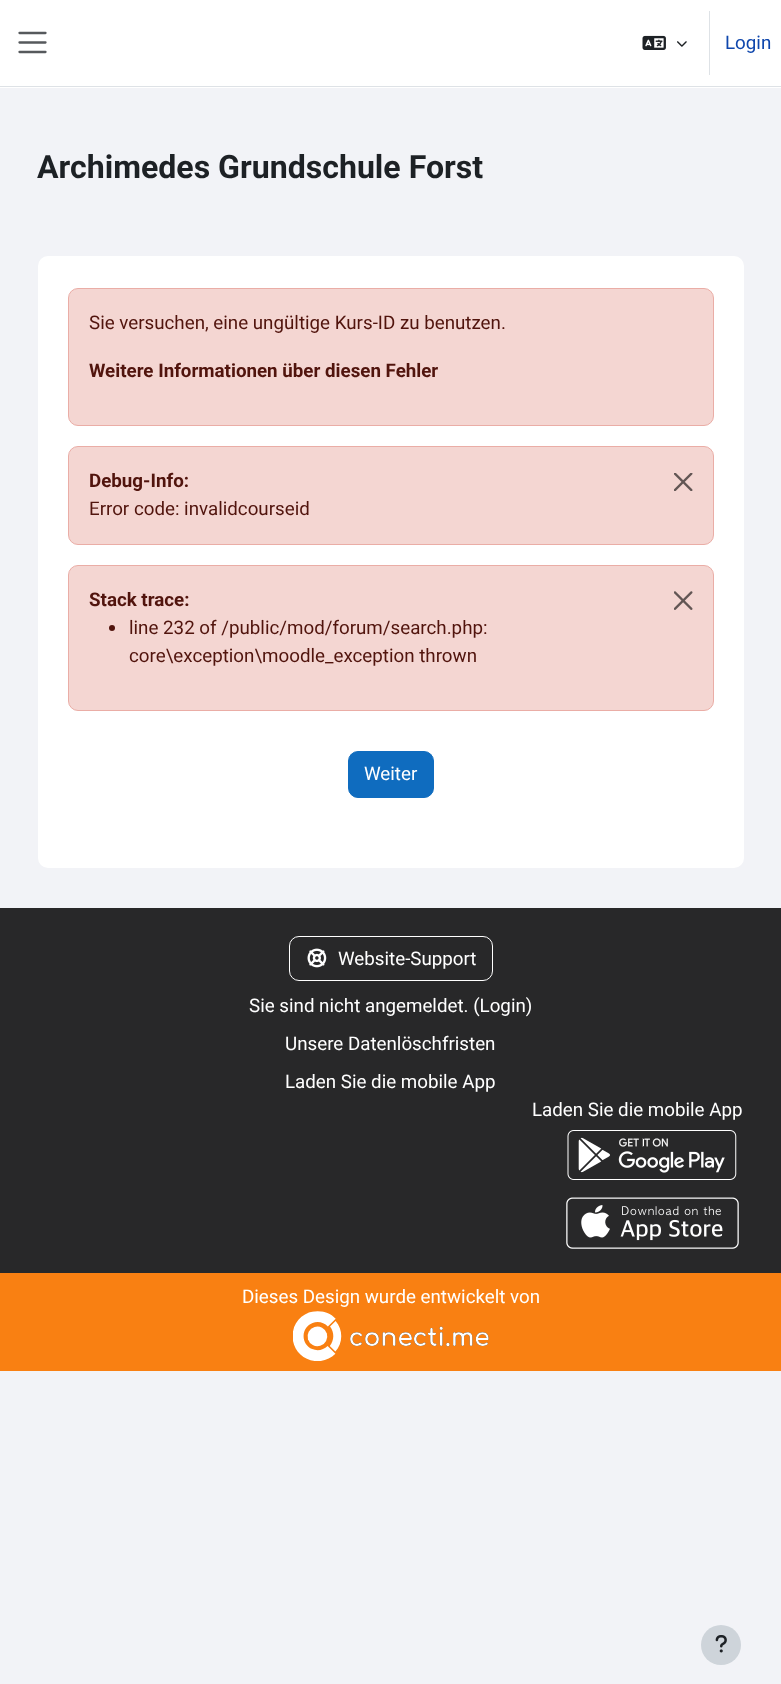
<svg xmlns="http://www.w3.org/2000/svg" width="781" height="1684" viewBox="0 0 781 1684">
  <rect width="100%" height="100%" fill="rgb(242,243,247)"/>
  <rect x="0" y="0" width="781" height="88" fill="rgb(255,255,255)"/>
  <rect x="0" y="86" width="781" height="1" fill="rgb(222,226,230)"/>
  <path d="M19.5 33H45.5M19.5 42.5H45.5M19.5 52H45.5" fill="none" stroke="rgb(86,89,92)" stroke-width="2.3" stroke-linecap="round"/>
  <image x="642" y="35" width="24" height="15" href="pic1.png"/>
  <image x="677" y="41" width="10" height="6" href="pic2.png"/>
  <rect x="709" y="11" width="1" height="64" fill="rgb(222,226,230)"/>
  <text x="725" y="49" font-family="Roboto" font-size="18.75" fill="rgb(15,71,173)">Login</text>
  <text x="37" y="178" font-family="Roboto" font-size="32.1" font-weight="bold" fill="rgb(29,33,37)">Archimedes Grundschule Forst</text>
  <rect x="38" y="256" width="706" height="612" rx="10" fill="rgb(255,255,255)"/>
  <rect x="68.5" y="288.5" width="645" height="137" rx="9.5" fill="rgb(244,214,210)" stroke="rgb(234,173,166)"/>
  <text x="89" y="329" font-family="Roboto" font-size="18.75" fill="rgb(81,20,13)">Sie versuchen, eine ungültige Kurs-ID zu benutzen.</text>
  <text x="89" y="377" font-family="Roboto" font-size="18.75" font-weight="bold" fill="rgb(81,20,13)">Weitere Informationen über diesen Fehler</text>
  <rect x="68.5" y="446.5" width="645" height="98" rx="9.5" fill="rgb(244,214,210)" stroke="rgb(234,173,166)"/>
  <text x="89" y="487" font-family="Roboto" font-size="18.75" font-weight="bold" fill="rgb(81,20,13)">Debug-Info:</text>
  <image x="674" y="473" width="19" height="18" href="pic3.png"/>
  <text x="89" y="515" font-family="Roboto" font-size="18.75" fill="rgb(81,20,13)">Error code: invalidcourseid</text>
  <rect x="68.5" y="565.5" width="645" height="145" rx="9.5" fill="rgb(244,214,210)" stroke="rgb(234,173,166)"/>
  <text x="89" y="606" font-family="Roboto" font-size="18.75" font-weight="bold" fill="rgb(81,20,13)">Stack trace:</text>
  <image x="674" y="591" width="19" height="19" href="pic4.png"/>
  <circle cx="112" cy="628" r="3" fill="rgb(81,20,13)"/>
  <g font-family="Roboto" font-size="18.75" fill="rgb(81,20,13)">
    <text>
      <tspan x="129" y="634">line 232 of /public/mod/forum/search.php:</tspan>
      <tspan x="129" y="662">core\exception\moodle_exception thrown</tspan>
    </text>
  </g>
  <rect x="348.5" y="751.5" width="85" height="46" rx="9.5" fill="rgb(15,108,191)" stroke="rgb(15,108,191)"/>
  <text x="364" y="780" font-family="Roboto" font-size="18.75" fill="rgb(255,255,255)">Weiter</text>
  <rect x="0" y="908" width="781" height="365" fill="rgb(40,40,41)"/>
  <rect x="289.5" y="936.5" width="203" height="44" rx="9.5" fill="none" stroke="rgb(255,255,255)"/>
  <image x="307" y="948" width="20" height="20" href="pic5.png"/>
  <g font-family="Roboto" font-size="18.75" fill="rgb(255,255,255)">
    <text x="338" y="965">Website-Support</text>
    <text x="249" y="1012">Sie sind nicht angemeldet. (Login)</text>
    <text x="285" y="1050">Unsere Datenlöschfristen</text>
    <text x="285" y="1088">Laden Sie die mobile App</text>
    <text x="532" y="1116">Laden Sie die mobile App</text>
  </g>
  <image x="567" y="1130" width="170" height="50" href="pic6.png"/>
  <image x="566" y="1197" width="173" height="52" href="pic7.png"/>
  <rect x="0" y="1273" width="781" height="98" fill="rgb(249,128,18)"/>
  <text x="242" y="1303" font-family="Roboto" font-size="18.75" fill="rgb(255,255,255)">Dieses Design wurde entwickelt von</text>
  <image x="293" y="1311" width="196" height="50" href="pic8.png"/>
  <circle cx="721" cy="1645" r="20" fill="rgb(206,212,218)"/>
  <image x="715" y="1635" width="12" height="18" href="pic9.png"/>
</svg>
